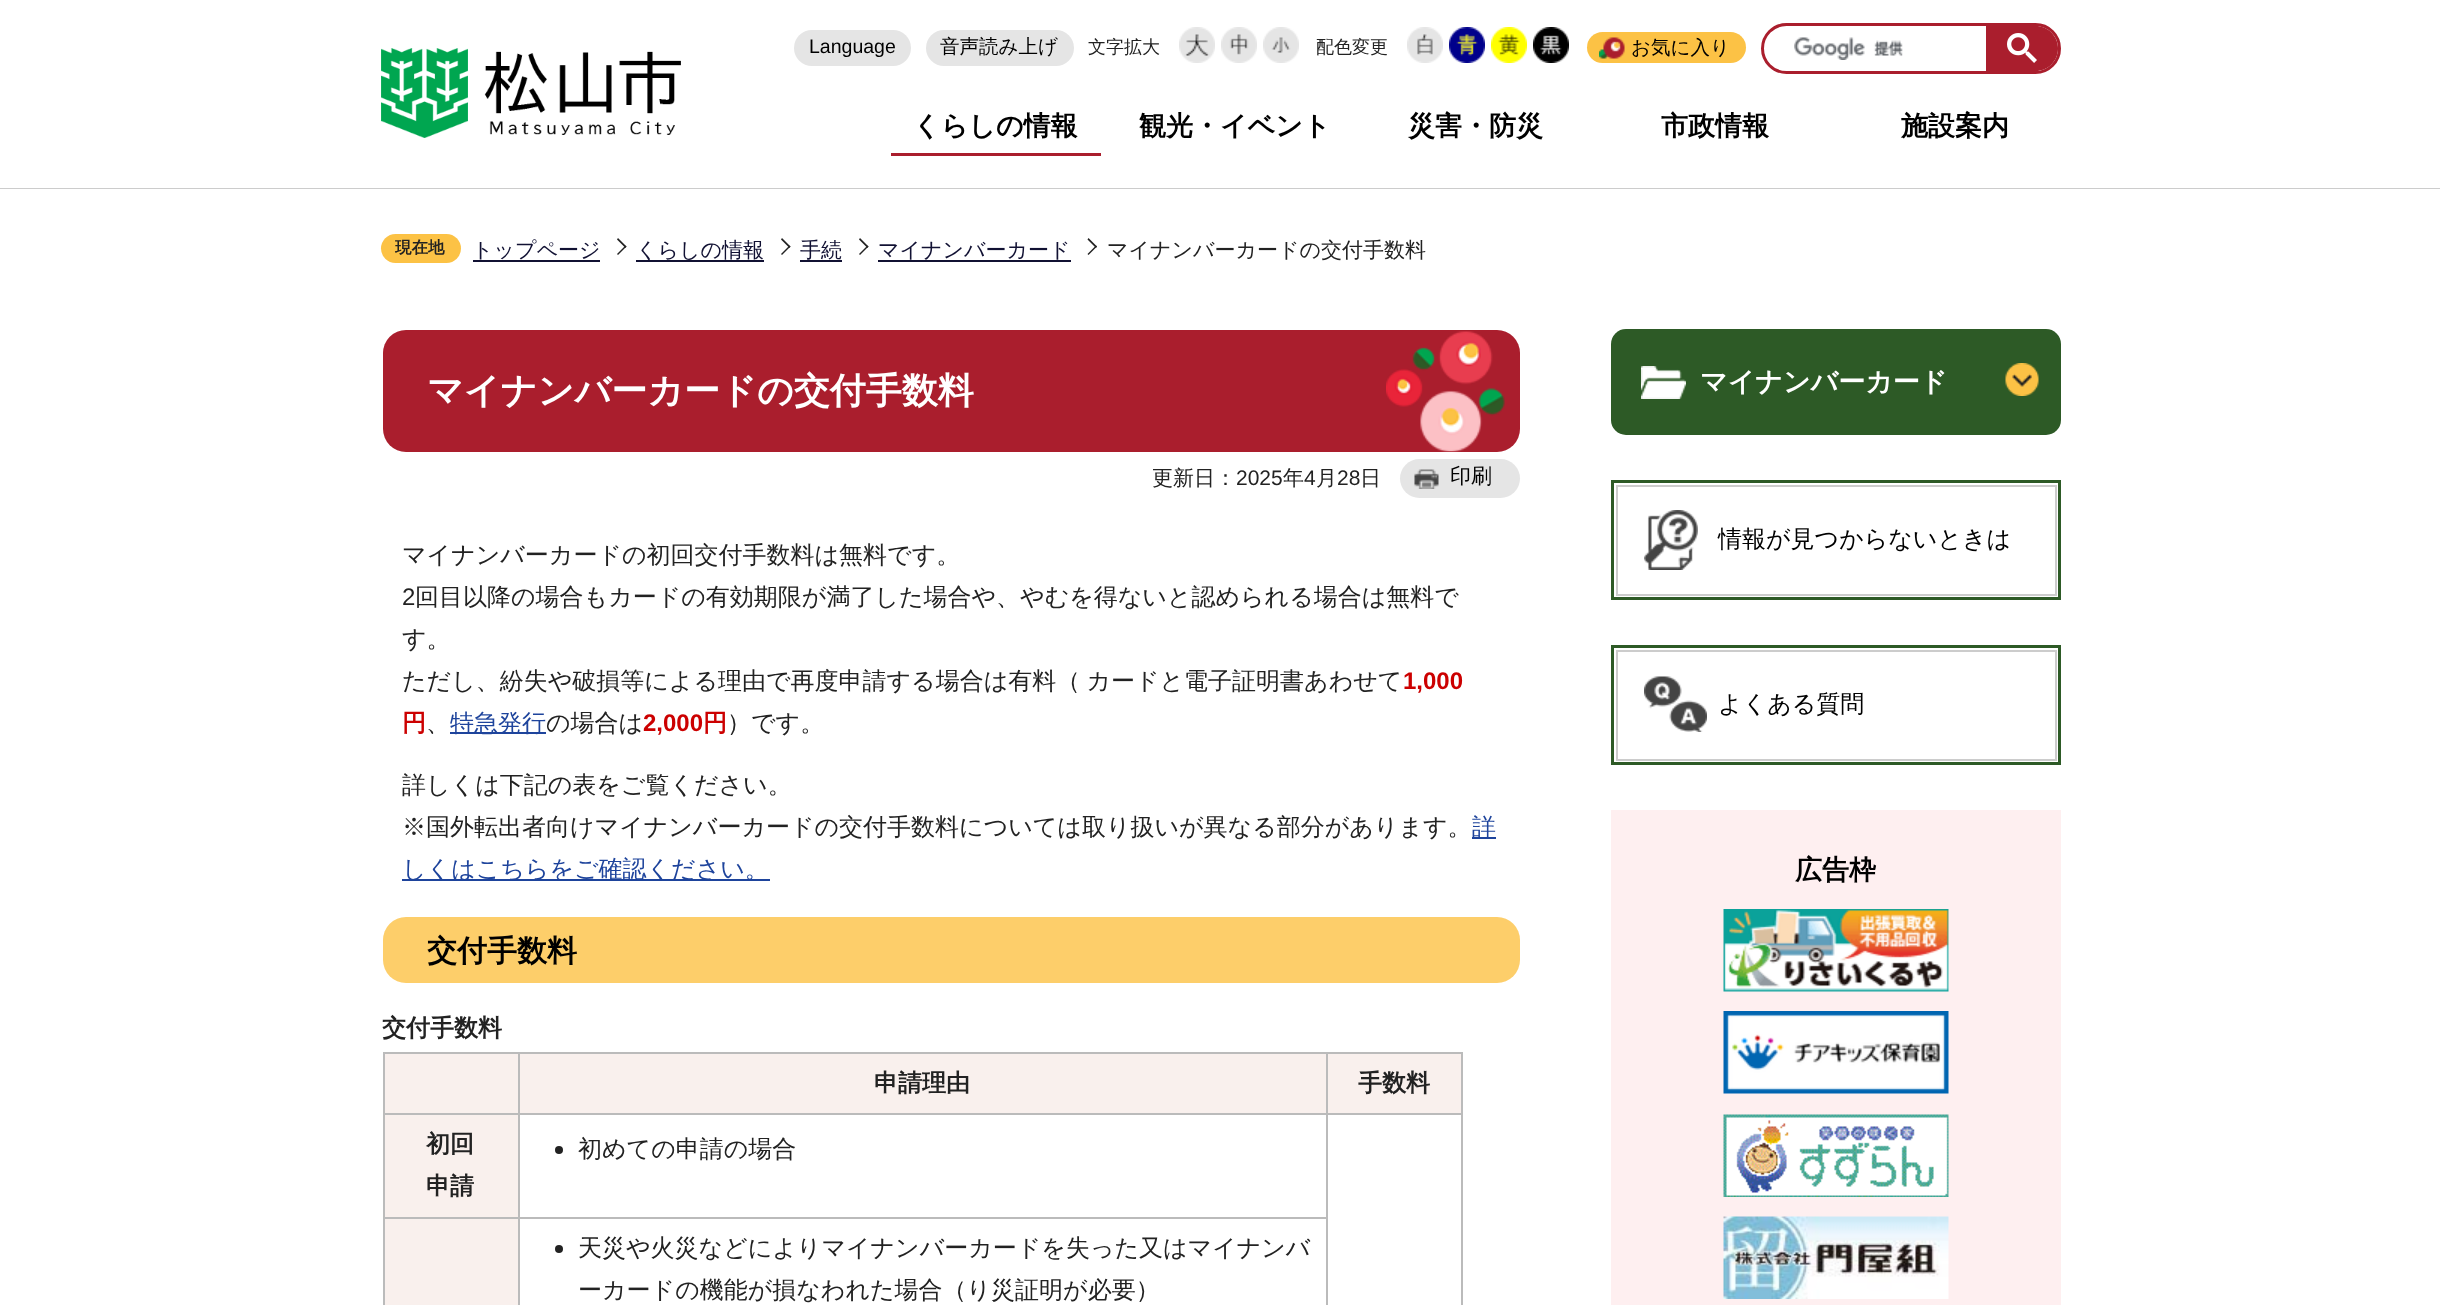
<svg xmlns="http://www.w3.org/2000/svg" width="2440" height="1305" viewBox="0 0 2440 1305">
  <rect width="100%" height="100%" fill="rgb(255,255,255)"/>
  <rect x="0" y="188" width="2440" height="1" fill="rgb(204,204,204)"/>
  <image x="381" y="48" width="300" height="90" href="pic1.png"/>
  <rect x="794" y="30" width="117" height="36" rx="18" fill="rgb(229,229,229)"/>
  <text x="809" y="53" font-family="Liberation Sans" font-size="19.5" fill="rgb(0,0,0)">Language</text>
  <rect x="926" y="30" width="148" height="36" rx="18" fill="rgb(229,229,229)"/>
  <text x="940" y="53" font-family="WenQuanYi Zen Hei" font-size="19.5" font-weight="500" fill="rgb(0,0,0)">音声読み上げ</text>
  <text x="1088" y="53" font-family="WenQuanYi Zen Hei" font-size="18" font-weight="500" fill="rgb(34,34,34)">文字拡大</text>
  <image x="1179" y="27" width="36" height="36" href="pic2.png"/>
  <image x="1221" y="27" width="36" height="36" href="pic3.png"/>
  <image x="1263" y="27" width="36" height="36" href="pic4.png"/>
  <text x="1316" y="53" font-family="WenQuanYi Zen Hei" font-size="18" font-weight="500" fill="rgb(34,34,34)">配色変更</text>
  <image x="1407" y="27" width="36" height="36" href="pic5.png"/>
  <image x="1449" y="27" width="36" height="36" href="pic6.png"/>
  <image x="1491" y="27" width="36" height="36" href="pic7.png"/>
  <image x="1533" y="27" width="36" height="36" href="pic8.png"/>
  <rect x="1587" y="32" width="159" height="31" rx="15.5" fill="rgb(252,194,69)"/>
  <image x="1599" y="37" width="26" height="22" href="pic9.png"/>
  <text x="1631" y="54" font-family="WenQuanYi Zen Hei" font-size="19.5" font-weight="500" fill="rgb(0,0,0)">お気に入り</text>
  <rect x="1762.5" y="24.5" width="297" height="48" rx="24" fill="none" stroke="rgb(170,30,45)" stroke-width="3"/>
  <image x="1794" y="37" width="109" height="23" href="pic10.png"/>
  <path d="M1986 26H2035.5C2048 26 2058 36 2058 48.5C2058 61 2048 71 2035.5 71H1986Z" fill="rgb(170,30,45)"/>
  <image x="2007" y="33" width="30" height="30" href="pic11.png"/>
  <text x="913" y="135" font-family="WenQuanYi Zen Hei" font-size="27" font-weight="bold" fill="rgb(0,0,0)">くらしの情報</text>
  <rect x="891" y="153" width="210" height="3" fill="rgb(170,30,45)"/>
  <g font-family="WenQuanYi Zen Hei" font-size="27" font-weight="bold" fill="rgb(0,0,0)">
    <text x="1139" y="135">観光・イベント</text>
    <text x="1408" y="135">災害・防災</text>
    <text x="1661" y="135">市政情報</text>
    <text x="1901" y="135">施設案内</text>
  </g>
  <rect x="381" y="234" width="80" height="29" rx="14.5" fill="rgb(252,194,69)"/>
  <text x="395" y="253" font-family="WenQuanYi Zen Hei" font-size="16.5" font-weight="bold" fill="rgb(34,34,34)">現在地</text>
  <text x="472" y="257" font-family="WenQuanYi Zen Hei" font-size="21" font-weight="500" fill="rgb(17,17,51)">トップページ</text>
  <rect x="473" y="260" width="127" height="2" fill="rgb(17,17,51)"/>
  <path d="M618 238L626.5 246.5L625.5 248L617 239.5Z" fill="rgb(34,34,34)"/>
  <path d="M625.5 245.5L626.5 246.5L618 255L617 254Z" fill="rgb(34,34,34)"/>
  <rect x="636" y="260" width="128" height="2" fill="rgb(17,17,51)"/>
  <text x="636" y="257" font-family="WenQuanYi Zen Hei" font-size="21" font-weight="500" fill="rgb(17,17,51)">くらしの情報</text>
  <path d="M782 238L790.5 246.5L789.5 248L781 239.5Z" fill="rgb(34,34,34)"/>
  <path d="M789.5 245.5L790.5 246.5L782 255L781 254Z" fill="rgb(34,34,34)"/>
  <text x="800" y="257" font-family="WenQuanYi Zen Hei" font-size="21" font-weight="500" fill="rgb(17,17,51)">手続</text>
  <rect x="800" y="260" width="42" height="2" fill="rgb(17,17,51)"/>
  <path d="M860 238L868.5 246.5L867.5 248L859 239.5Z" fill="rgb(34,34,34)"/>
  <path d="M867.5 245.5L868.5 246.5L860 255L859 254Z" fill="rgb(34,34,34)"/>
  <text x="878" y="257" font-family="WenQuanYi Zen Hei" font-size="21" font-weight="500" fill="rgb(17,17,51)">マイナンバーカード</text>
  <rect x="878" y="260" width="193" height="2" fill="rgb(17,17,51)"/>
  <path d="M1088.5 238L1097 246.5L1096 248L1087.5 239.5Z" fill="rgb(34,34,34)"/>
  <path d="M1096 245.5L1097 246.5L1088.5 255L1087.5 254Z" fill="rgb(34,34,34)"/>
  <text x="1107" y="257" font-family="WenQuanYi Zen Hei" font-size="21" font-weight="500" fill="rgb(34,34,34)">マイナンバーカードの交付手数料</text>
  <rect x="383" y="330" width="1137" height="122" rx="23" fill="rgb(170,30,45)"/>
  <image x="1386" y="331" width="119" height="121" href="pic12.png"/>
  <text x="427" y="403" font-family="WenQuanYi Zen Hei" font-size="36" font-weight="bold" fill="rgb(255,255,255)">マイナンバーカードの交付手数料</text>
  <text x="1152" y="485" font-family="WenQuanYi Zen Hei" font-size="21" font-weight="500" fill="rgb(34,34,34)">更新日：</text>
  <text x="1236" y="485" font-family="Liberation Sans" font-size="21" fill="rgb(34,34,34)">2025</text>
  <text x="1283" y="485" font-family="WenQuanYi Zen Hei" font-size="21" font-weight="500" fill="rgb(34,34,34)">年</text>
  <text x="1304" y="485" font-family="Liberation Sans" font-size="21" fill="rgb(34,34,34)">4</text>
  <text x="1316" y="485" font-family="WenQuanYi Zen Hei" font-size="21" font-weight="500" fill="rgb(34,34,34)">月</text>
  <text x="1337" y="485" font-family="Liberation Sans" font-size="21" fill="rgb(34,34,34)">28</text>
  <text x="1360" y="485" font-family="WenQuanYi Zen Hei" font-size="21" font-weight="500" fill="rgb(34,34,34)">日</text>
  <rect x="1400" y="459" width="120" height="39" rx="19.5" fill="rgb(229,229,229)"/>
  <image x="1414" y="469" width="25" height="20" href="pic13.png"/>
  <text x="1450" y="483" font-family="WenQuanYi Zen Hei" font-size="21" font-weight="500" fill="rgb(0,0,0)">印刷</text>
  <text x="402" y="563" font-family="WenQuanYi Zen Hei" font-size="24" font-weight="500" fill="rgb(34,34,34)">マイナンバーカードの初回交付手数料は無料です。</text>
  <text x="402" y="605" font-family="Liberation Sans" font-size="24" fill="rgb(34,34,34)">2</text>
  <g font-family="WenQuanYi Zen Hei" font-size="24" font-weight="500" fill="rgb(34,34,34)">
    <text x="415" y="605">回目以降の場合もカードの有効期限が満了した場合や、やむを得ないと認められる場合は無料で</text>
    <text>
      <tspan x="402" y="647">す。</tspan>
      <tspan x="402" y="689" word-spacing="-1">ただし、紛失や破損等による理由で再度申請する場合は有料（ カードと電子証明書あわせて</tspan>
    </text>
  </g>
  <text x="1403" y="689" font-family="Liberation Sans" font-size="24" font-weight="bold" fill="rgb(204,0,0)">1,000</text>
  <text x="402" y="731" font-family="WenQuanYi Zen Hei" font-size="24" font-weight="bold" fill="rgb(204,0,0)">円</text>
  <text x="426" y="731" font-family="WenQuanYi Zen Hei" font-size="24" font-weight="500" fill="rgb(34,34,34)">、</text>
  <rect x="450" y="732" width="96" height="2" fill="rgb(30,68,156)"/>
  <text x="450" y="731" font-family="WenQuanYi Zen Hei" font-size="24" font-weight="500" fill="rgb(30,68,156)">特急発行</text>
  <text x="546" y="731" font-family="WenQuanYi Zen Hei" font-size="24" font-weight="500" fill="rgb(34,34,34)">の場合は</text>
  <text x="643" y="731" font-family="Liberation Sans" font-size="24" font-weight="bold" fill="rgb(204,0,0)">2,000</text>
  <text x="703" y="731" font-family="WenQuanYi Zen Hei" font-size="24" font-weight="bold" fill="rgb(204,0,0)">円</text>
  <g font-family="WenQuanYi Zen Hei" font-size="24" font-weight="500" fill="rgb(34,34,34)">
    <text x="727" y="731">）です。</text>
    <text>
      <tspan x="402" y="793">詳しくは下記の表をご覧ください。</tspan>
      <tspan x="402" y="835">※国外転出者向けマイナンバーカードの交付手数料については取り扱いが異なる部分があります。</tspan>
    </text>
  </g>
  <rect x="1472" y="837" width="24" height="2" fill="rgb(30,68,156)"/>
  <text x="1472" y="835" font-family="WenQuanYi Zen Hei" font-size="24" font-weight="500" fill="rgb(30,68,156)">詳</text>
  <rect x="402" y="879" width="368" height="2" fill="rgb(30,68,156)"/>
  <text x="402" y="877" font-family="WenQuanYi Zen Hei" font-size="24" font-weight="500" fill="rgb(30,68,156)">しくはこちらをご確認ください。</text>
  <rect x="383" y="917" width="1137" height="66" rx="23" fill="rgb(253,206,106)"/>
  <text x="427" y="961" font-family="WenQuanYi Zen Hei" font-size="30" font-weight="bold" fill="rgb(0,0,0)">交付手数料</text>
  <text x="382" y="1036" font-family="WenQuanYi Zen Hei" font-size="24" font-weight="bold" fill="rgb(34,34,34)">交付手数料</text>
  <rect x="385" y="1054" width="133" height="59" fill="rgb(249,240,237)"/>
  <rect x="1326" y="1052" width="137" height="2" fill="rgb(187,187,187)"/>
  <rect x="1326" y="1113" width="137" height="2" fill="rgb(187,187,187)"/>
  <rect x="518" y="1217" width="810" height="2" fill="rgb(187,187,187)"/>
  <rect x="1326" y="1113" width="2" height="192" fill="rgb(187,187,187)"/>
  <rect x="518" y="1113" width="810" height="2" fill="rgb(187,187,187)"/>
  <rect x="1326" y="1052" width="2" height="63" fill="rgb(187,187,187)"/>
  <rect x="518" y="1052" width="810" height="2" fill="rgb(187,187,187)"/>
  <rect x="518" y="1217" width="2" height="88" fill="rgb(187,187,187)"/>
  <rect x="383" y="1217" width="136" height="2" fill="rgb(187,187,187)"/>
  <rect x="518" y="1113" width="2" height="105" fill="rgb(187,187,187)"/>
  <rect x="383" y="1113" width="136" height="2" fill="rgb(187,187,187)"/>
  <rect x="518" y="1052" width="2" height="63" fill="rgb(187,187,187)"/>
  <rect x="383" y="1052" width="136" height="2" fill="rgb(187,187,187)"/>
  <rect x="383" y="1217" width="2" height="88" fill="rgb(187,187,187)"/>
  <rect x="383" y="1113" width="2" height="105" fill="rgb(187,187,187)"/>
  <rect x="383" y="1052" width="2" height="63" fill="rgb(187,187,187)"/>
  <rect x="520" y="1054" width="806" height="59" fill="rgb(249,240,237)"/>
  <text x="874" y="1091" font-family="WenQuanYi Zen Hei" font-size="24" font-weight="bold" fill="rgb(34,34,34)">申請理由</text>
  <rect x="1328" y="1054" width="133" height="59" fill="rgb(249,240,237)"/>
  <rect x="1461" y="1113" width="2" height="192" fill="rgb(187,187,187)"/>
  <rect x="1461" y="1052" width="2" height="63" fill="rgb(187,187,187)"/>
  <text x="1358" y="1091" font-family="WenQuanYi Zen Hei" font-size="24" font-weight="bold" fill="rgb(34,34,34)">手数料</text>
  <rect x="385" y="1115" width="133" height="102" fill="rgb(249,240,237)"/>
  <g font-family="WenQuanYi Zen Hei" font-size="24" font-weight="bold" fill="rgb(34,34,34)">
    <text>
      <tspan x="426" y="1152">初回</tspan>
      <tspan x="426" y="1194">申請</tspan>
    </text>
  </g>
  <circle cx="559" cy="1150" r="4" fill="rgb(34,34,34)"/>
  <text x="578" y="1157" font-family="WenQuanYi Zen Hei" font-size="24" font-weight="500" fill="rgb(34,34,34)">初めての申請の場合</text>
  <rect x="385" y="1219" width="133" height="86" fill="rgb(249,240,237)"/>
  <circle cx="559" cy="1249" r="4" fill="rgb(34,34,34)"/>
  <g font-family="WenQuanYi Zen Hei" font-size="24" font-weight="500" fill="rgb(34,34,34)">
    <text>
      <tspan x="578" y="1256">天災や火災などによりマイナンバーカードを失った又はマイナンバ</tspan>
      <tspan x="578" y="1298">ーカードの機能が損なわれた場合（り災証明が必要）</tspan>
    </text>
  </g>
  <rect x="1611" y="329" width="450" height="106" rx="15" fill="rgb(45,90,38)"/>
  <image x="1641" y="366" width="45" height="33" href="pic14.png"/>
  <text x="1700" y="391" font-family="WenQuanYi Zen Hei" font-size="27" font-weight="bold" fill="rgb(255,255,255)">マイナンバーカード</text>
  <image x="2005" y="363" width="34" height="33" href="pic15.png"/>
  <image x="1644" y="510" width="54" height="60" href="pic16.png"/>
  <rect x="1612.5" y="481.5" width="447" height="117" fill="none" stroke="rgb(45,90,38)" stroke-width="3"/>
  <rect x="1617" y="486" width="439" height="109" fill="none" stroke="rgb(204,204,204)" stroke-width="2"/>
  <text x="1718" y="547" font-family="WenQuanYi Zen Hei" font-size="24" font-weight="500" fill="rgb(0,0,0)">情報が見つからないときは</text>
  <image x="1644" y="676" width="63" height="56" href="pic17.png"/>
  <rect x="1612.5" y="646.5" width="447" height="117" fill="none" stroke="rgb(45,90,38)" stroke-width="3"/>
  <rect x="1617" y="651" width="439" height="109" fill="none" stroke="rgb(204,204,204)" stroke-width="2"/>
  <text x="1718" y="712" font-family="WenQuanYi Zen Hei" font-size="24" font-weight="500" fill="rgb(0,0,0)">よくある質問</text>
  <rect x="1611" y="810" width="450" height="495" fill="rgb(254,239,240)"/>
  <text x="1795" y="879" font-family="WenQuanYi Zen Hei" font-size="27" font-weight="bold" fill="rgb(0,0,0)">広告枠</text>
  <image x="1723" y="909" width="226" height="83" href="pic18.png"/>
  <image x="1723" y="1011" width="226" height="83" href="pic19.png"/>
  <image x="1723" y="1114" width="226" height="83" href="pic20.png"/>
  <image x="1723" y="1216" width="226" height="83" href="pic21.png"/>
</svg>
